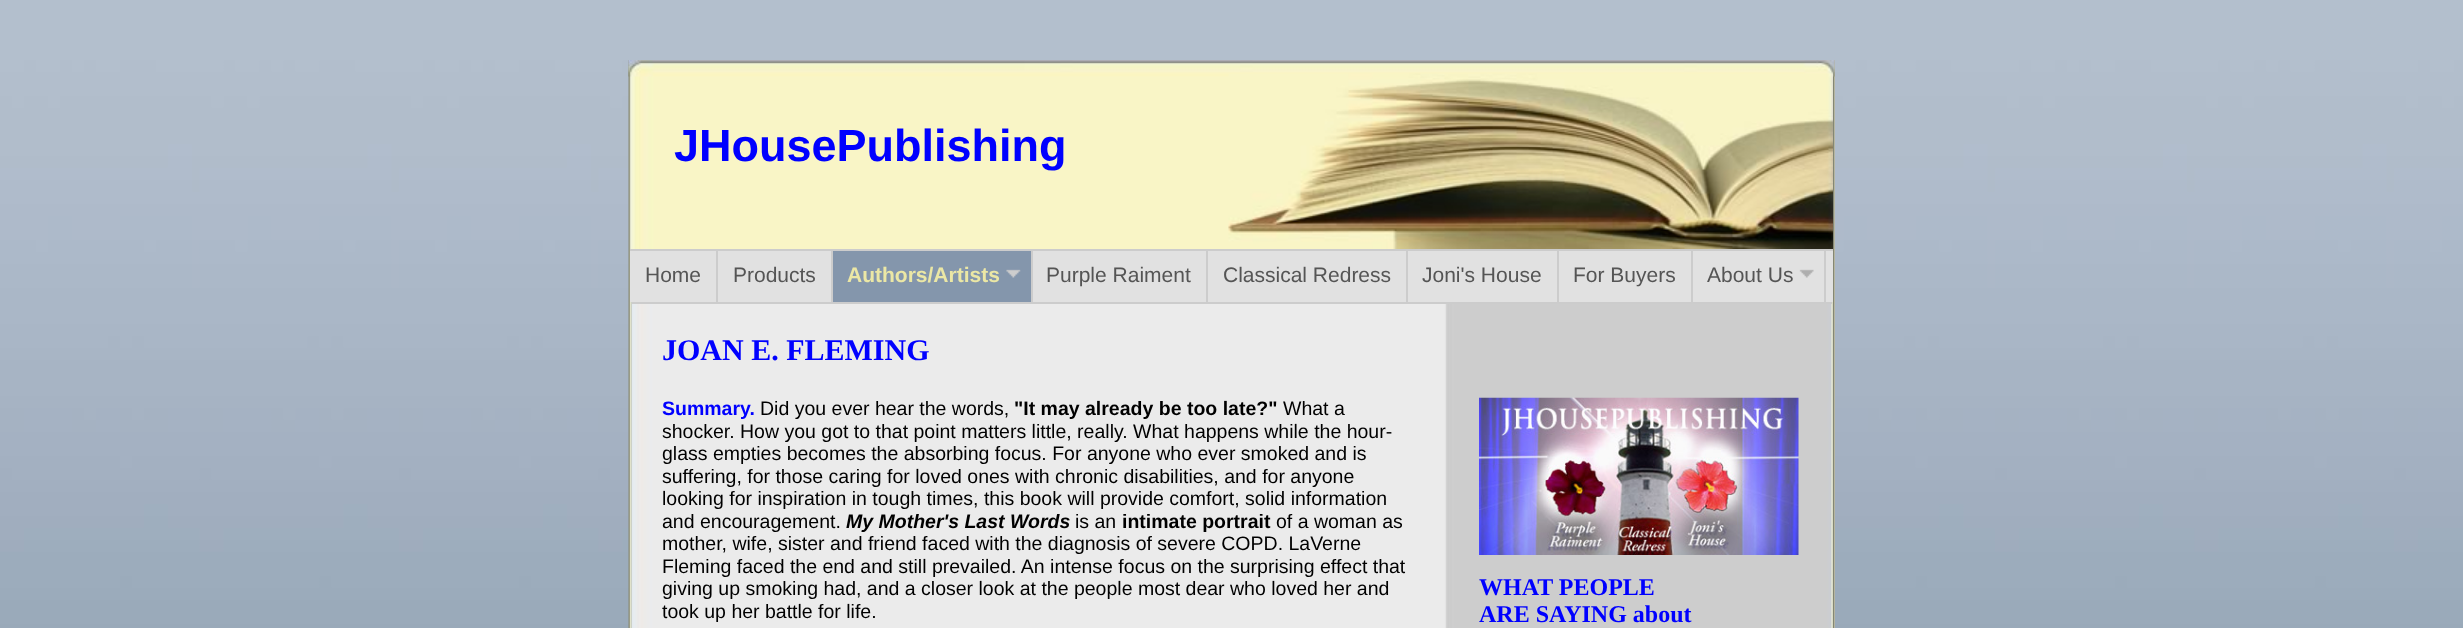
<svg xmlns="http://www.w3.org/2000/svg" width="2463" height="628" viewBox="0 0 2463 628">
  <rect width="100%" height="100%" fill="rgb(255,255,255)"/>
  <image x="0" y="0" width="2463" height="628" href="pic1.png"/>
  <rect x="1834" y="60" width="1" height="568" fill="rgb(251,248,222)"/>
  <image x="628" y="60" width="1207" height="568" href="pic2.png"/>
  <image x="628" y="60" width="1207" height="17" href="pic3.png"/>
  <image x="1228" y="73" width="605" height="176" href="pic4.png"/>
  <text x="674" y="161" font-family="Liberation Sans" font-size="45" font-weight="bold" fill="rgb(0,0,255)">JHousePublishing</text>
  <rect x="630" y="251" width="1203" height="51" fill="rgb(225,225,225)"/>
  <rect x="630" y="249" width="1203" height="2" fill="rgb(204,204,204)"/>
  <rect x="716" y="251" width="2" height="51" fill="rgb(204,204,204)"/>
  <text x="645" y="282" font-family="Liberation Sans" font-size="21" fill="rgb(85,85,85)">Home</text>
  <rect x="831" y="251" width="2" height="51" fill="rgb(204,204,204)"/>
  <text x="733" y="282" font-family="Liberation Sans" font-size="21" fill="rgb(85,85,85)">Products</text>
  <rect x="833" y="251" width="198" height="51" fill="rgb(132,150,172)"/>
  <rect x="1031" y="251" width="2" height="51" fill="rgb(204,204,204)"/>
  <text x="847" y="282" font-family="Liberation Sans" font-size="21" font-weight="bold" fill="rgb(235,231,165)">Authors/Artists</text>
  <image x="1006" y="269" width="15" height="9" href="pic5.png"/>
  <rect x="1206" y="251" width="2" height="51" fill="rgb(204,204,204)"/>
  <text x="1046" y="282" font-family="Liberation Sans" font-size="21" fill="rgb(85,85,85)">Purple Raiment</text>
  <rect x="1406" y="251" width="2" height="51" fill="rgb(204,204,204)"/>
  <text x="1223" y="282" font-family="Liberation Sans" font-size="21" fill="rgb(85,85,85)">Classical Redress</text>
  <rect x="1557" y="251" width="2" height="51" fill="rgb(204,204,204)"/>
  <text x="1422" y="282" font-family="Liberation Sans" font-size="21" fill="rgb(85,85,85)">Joni's House</text>
  <rect x="1691" y="251" width="2" height="51" fill="rgb(204,204,204)"/>
  <text x="1573" y="282" font-family="Liberation Sans" font-size="21" fill="rgb(85,85,85)">For Buyers</text>
  <rect x="1824" y="251" width="2" height="51" fill="rgb(204,204,204)"/>
  <text x="1707" y="282" font-family="Liberation Sans" font-size="21" fill="rgb(85,85,85)">About Us</text>
  <image x="1799" y="269" width="15" height="9" href="pic6.png"/>
  <image x="631" y="302" width="1201" height="326" href="pic7.png"/>
  <rect x="632" y="302" width="1200" height="2" fill="rgb(204,204,204)"/>
  <text x="662" y="360" font-family="Liberation Serif" font-size="30" font-weight="bold" fill="rgb(0,0,255)">JOAN E. FLEMING</text>
  <text x="662" y="415" font-family="Liberation Sans" font-size="19.5" font-weight="bold" fill="rgb(0,0,255)">Summary.</text>
  <text x="760" y="415" font-family="Liberation Sans" font-size="19.5" fill="rgb(0,0,0)">Did you ever hear the words,</text>
  <text x="1014" y="415" font-family="Liberation Sans" font-size="19.5" font-weight="bold" fill="rgb(0,0,0)">"It may already be too late?"</text>
  <g font-family="Liberation Sans" font-size="19.5" fill="rgb(0,0,0)">
    <text x="1283" y="415">What a</text>
    <text>
      <tspan x="662" y="438">shocker. How you got to that point matters little, really. What happens while the hour-</tspan>
      <tspan x="662" y="460">glass empties becomes the absorbing focus. For anyone who ever smoked and is</tspan>
      <tspan x="662" y="483">suffering, for those caring for loved ones with chronic disabilities, and for anyone</tspan>
      <tspan x="662" y="505">looking for inspiration in tough times, this book will provide comfort, solid information</tspan>
      <tspan x="662" y="528">and encouragement.</tspan>
    </text>
  </g>
  <text x="846" y="528" font-family="Liberation Sans" font-size="19.5" font-weight="bold" font-style="italic" fill="rgb(0,0,0)">My Mother's Last Words</text>
  <text x="1075" y="528" font-family="Liberation Sans" font-size="19.5" fill="rgb(0,0,0)">is an</text>
  <text x="1122" y="528" font-family="Liberation Sans" font-size="19.5" font-weight="bold" fill="rgb(0,0,0)">intimate portrait</text>
  <g font-family="Liberation Sans" font-size="19.5" fill="rgb(0,0,0)">
    <text x="1276" y="528">of a woman as</text>
    <text>
      <tspan x="662" y="550">mother, wife, sister and friend faced with the diagnosis of severe COPD. LaVerne</tspan>
      <tspan x="662" y="573">Fleming faced the end and still prevailed. An intense focus on the surprising effect that</tspan>
      <tspan x="662" y="595">giving up smoking had, and a closer look at the people most dear who loved her and</tspan>
      <tspan x="662" y="618">took up her battle for life.</tspan>
    </text>
  </g>
  <image x="1479" y="397" width="320" height="158" href="pic8.png"/>
  <g font-family="Liberation Serif" font-size="24" font-weight="bold" fill="rgb(0,0,255)">
    <text>
      <tspan x="1479" y="595">WHAT PEOPLE</tspan>
      <tspan x="1479" y="622">ARE SAYING about</tspan>
    </text>
  </g>
</svg>
